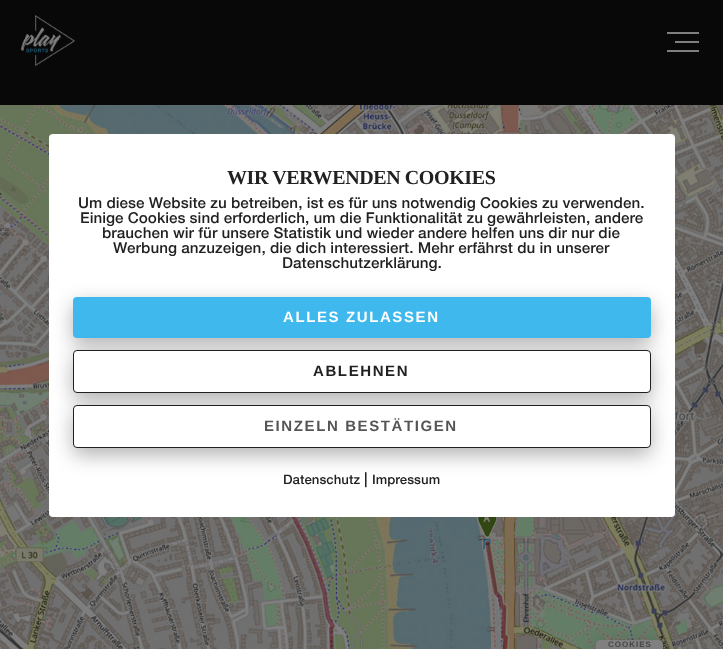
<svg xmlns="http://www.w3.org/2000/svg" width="723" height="649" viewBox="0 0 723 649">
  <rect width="100%" height="100%" fill="rgb(8,8,8)"/>
  <image x="21" y="15" width="54" height="51" href="pic1.png"/>
  <rect x="667" y="50" width="32" height="2" fill="rgb(128,128,128)"/>
  <rect x="667" y="32" width="32" height="2" fill="rgb(128,128,128)"/>
  <rect x="675" y="41" width="24" height="2" fill="rgb(128,128,128)"/>
  <image x="0" y="105" width="723" height="544" href="pic2.png"/>
  <rect x="49" y="134" width="626" height="383" rx="4" fill="rgb(255,255,255)"/>
  <text x="227" y="184" font-family="Liberation Serif" font-size="20" font-weight="bold" letter-spacing="-0.4" fill="rgb(33,33,33)">WIR VERWENDEN COOKIES</text>
  <g font-family="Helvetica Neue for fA" font-size="15" font-weight="500" fill="rgb(33,33,33)">
    <text x="78" y="208">Um diese Website zu betreiben, ist es für uns notwendig Cookies zu verwenden.</text>
    <text x="80" y="223">Einige Cookies sind erforderlich, um die Funktionalität zu gewährleisten, andere</text>
    <text x="102" y="238">brauchen wir für unsere Statistik und wieder andere helfen uns dir nur die</text>
    <text x="113" y="253">Werbung anzuzeigen, die dich interessiert. Mehr erfährst du in unserer</text>
    <text x="282" y="268">Datenschutzerklärung.</text>
  </g>
  <rect x="73" y="304" width="578" height="41" rx="4" fill="rgba(0,0,0,0.3)" filter="blur(10px)"/>
  <rect x="73" y="297" width="578" height="41" rx="4" fill="rgb(62,184,237)"/>
  <text x="283" y="322" font-family="Liberation Sans" font-size="15" font-weight="bold" letter-spacing="1.6" fill="rgb(255,255,255)">ALLES ZULASSEN</text>
  <rect x="73" y="357" width="578" height="43" rx="4" fill="rgba(0,0,0,0.3)" filter="blur(10px)"/>
  <rect x="73.5" y="350.5" width="577" height="42" rx="3.5" fill="rgb(255,255,255)" stroke="rgb(33,33,33)"/>
  <text x="313" y="376" font-family="Liberation Sans" font-size="15" font-weight="bold" letter-spacing="1.6" fill="rgb(33,33,33)">ABLEHNEN</text>
  <rect x="73" y="412" width="578" height="43" rx="4" fill="rgba(0,0,0,0.3)" filter="blur(10px)"/>
  <rect x="73.5" y="405.5" width="577" height="42" rx="3.5" fill="rgb(255,255,255)" stroke="rgb(33,33,33)"/>
  <text x="264" y="431" font-family="Liberation Sans" font-size="15" font-weight="bold" letter-spacing="1.6" fill="rgb(85,85,85)">EINZELN BESTÄTIGEN</text>
  <text x="283" y="484" font-family="Helvetica Neue for fA" font-size="13" font-weight="500" fill="rgb(33,33,33)">Datenschutz</text>
  <text x="364" y="484" font-family="Helvetica Neue for fA" font-size="15" font-weight="500" fill="rgb(33,33,33)">|</text>
  <text x="372" y="484" font-family="Helvetica Neue for fA" font-size="13" font-weight="500" fill="rgb(33,33,33)">Impressum</text>
  <rect x="596" y="647" width="67" height="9" rx="4" fill="rgba(0,0,0,0.3)" filter="blur(10px)"/>
  <path d="M600 640H659C661 640 663 642 663 644V649H596V644C596 642 598 640 600 640Z" fill="rgb(128,128,128)"/>
  <text x="608" y="647" font-family="Liberation Sans" font-size="8" font-weight="bold" letter-spacing="1" fill="rgb(69,69,69)">COOKIES</text>
</svg>
